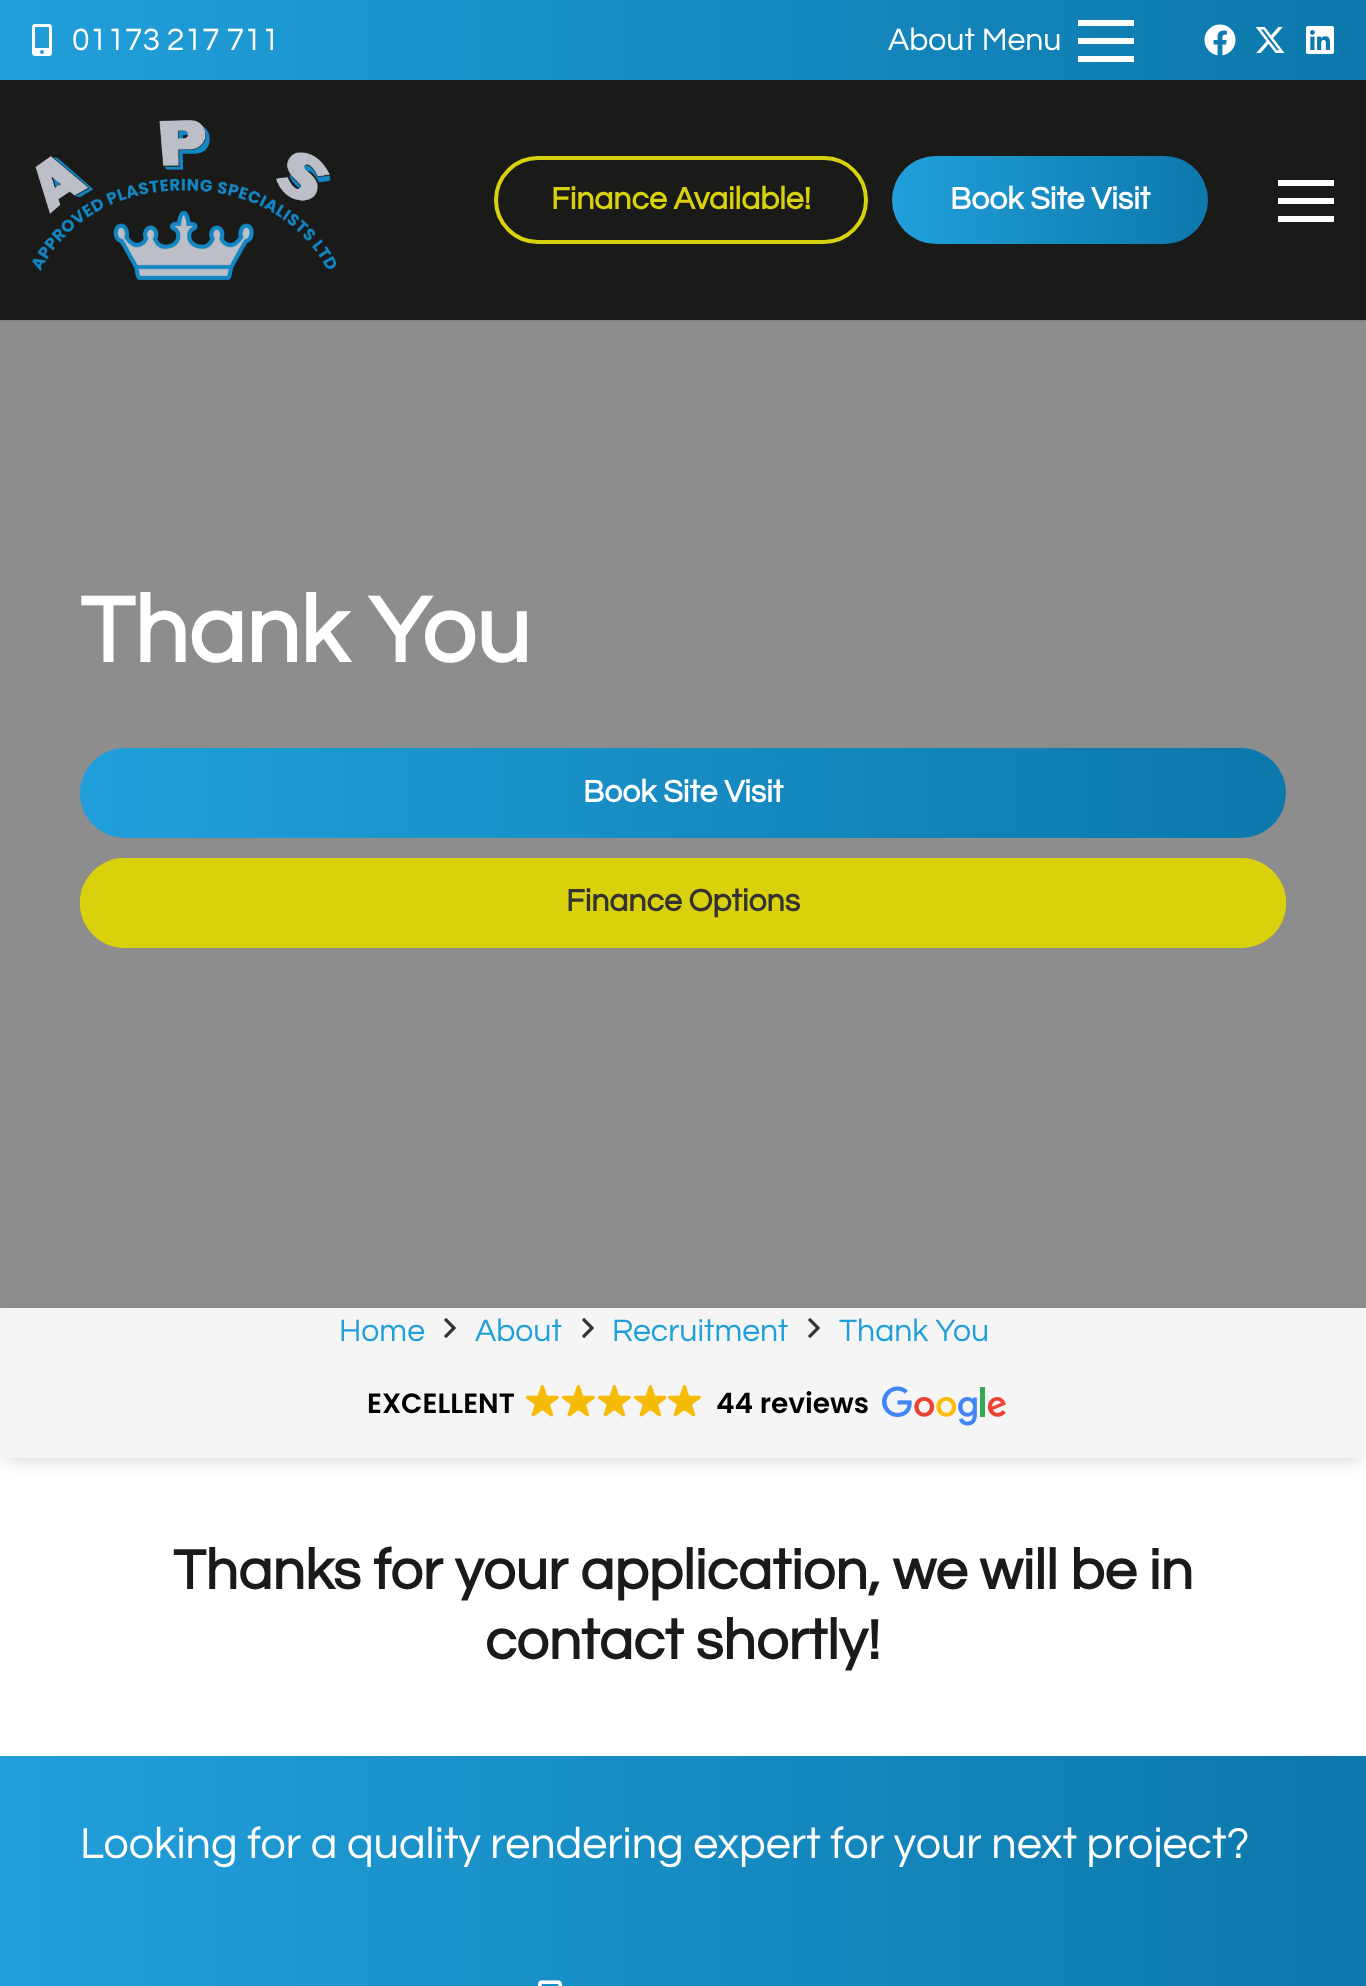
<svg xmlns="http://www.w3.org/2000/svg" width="1366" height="1986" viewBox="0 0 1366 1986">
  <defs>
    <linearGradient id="g1" gradientUnits="userSpaceOnUse" x1="0" y1="40" x2="1366" y2="40"><stop offset="0" stop-color="rgb(33,159,218)"/><stop offset="1" stop-color="rgb(12,120,171)"/></linearGradient>
    <linearGradient id="g2" gradientUnits="userSpaceOnUse" x1="892" y1="200" x2="1208" y2="200"><stop offset="0" stop-color="rgb(33,159,218)"/><stop offset="1" stop-color="rgb(12,120,171)"/></linearGradient>
    <linearGradient id="g3" gradientUnits="userSpaceOnUse" x1="80" y1="793" x2="1286" y2="793"><stop offset="0" stop-color="rgb(33,159,218)"/><stop offset="1" stop-color="rgb(12,120,171)"/></linearGradient>
    <linearGradient id="g4" gradientUnits="userSpaceOnUse" x1="0" y1="1978" x2="1366" y2="1978"><stop offset="0" stop-color="rgb(33,159,218)"/><stop offset="1" stop-color="rgb(12,120,171)"/></linearGradient>
  </defs>
  <rect width="100%" height="100%" fill="rgb(255,255,255)"/>
  <rect x="0" y="0" width="1366" height="80" fill="url(#g1)"/>
  <image x="32" y="24" width="20" height="32" href="pic1.png"/>
  <g font-family="Questrial" font-size="32" fill="rgb(255,255,255)">
    <text x="72" y="50">01173 217 711</text>
    <text x="888" y="50">About Menu</text>
  </g>
  <rect x="1078" y="38" width="56" height="6" fill="rgb(255,255,255)"/>
  <rect x="1078" y="20" width="56" height="6" fill="rgb(255,255,255)"/>
  <rect x="1078" y="56" width="56" height="6" fill="rgb(255,255,255)"/>
  <image x="1204" y="24" width="32" height="32" href="pic2.png"/>
  <image x="1255" y="27" width="30" height="26" href="pic3.png"/>
  <image x="1306" y="26" width="28" height="28" href="pic4.png"/>
  <rect x="0" y="320" width="1366" height="2" fill="rgb(130,130,130)"/>
  <rect x="0" y="80" width="1366" height="240" fill="rgb(26,26,24)"/>
  <image x="32" y="120" width="304" height="160" href="pic5.png"/>
  <rect x="496" y="158" width="370" height="84" rx="42" fill="none" stroke="rgb(217,209,11)" stroke-width="4"/>
  <text x="551" y="209" font-family="Questrial" font-size="32" font-weight="bold" fill="rgb(217,209,11)">Finance Available!</text>
  <rect x="892" y="156" width="316" height="88" rx="44" fill="url(#g2)"/>
  <text x="950" y="209" font-family="Questrial" font-size="32" font-weight="bold" fill="rgb(255,255,255)">Book Site Visit</text>
  <rect x="1278" y="198" width="56" height="6" fill="rgb(255,255,255)"/>
  <rect x="1278" y="180" width="56" height="6" fill="rgb(255,255,255)"/>
  <rect x="1278" y="216" width="56" height="6" fill="rgb(255,255,255)"/>
  <rect x="0" y="322" width="1366" height="986" fill="rgb(141,141,141)"/>
  <text x="80" y="662" font-family="Questrial" font-size="96" font-weight="bold" fill="rgb(255,255,255)">Thank You</text>
  <rect x="80" y="748" width="1206" height="90" rx="45" fill="url(#g3)"/>
  <text x="583" y="802" font-family="Questrial" font-size="32" font-weight="bold" fill="rgb(255,255,255)">Book Site Visit</text>
  <rect x="80" y="858" width="1206" height="90" rx="45" fill="rgb(217,209,11)"/>
  <rect x="82" y="860" width="1202" height="86" rx="43" fill="none" stroke="rgb(217,209,11)" stroke-width="4"/>
  <text x="566" y="911" font-family="Questrial" font-size="32" font-weight="bold" fill="rgb(51,51,51)">Finance Options</text>
  <rect x="6" y="1320" width="1354" height="138" fill="rgba(0,0,0,0.2)" filter="blur(10px)"/>
  <rect x="0" y="1308" width="1366" height="150" fill="rgb(245,245,245)"/>
  <text x="339" y="1341" font-family="Questrial" font-size="32" fill="rgb(33,159,218)">Home</text>
  <image x="444" y="1318" width="12" height="20" href="pic6.png"/>
  <text x="475" y="1341" font-family="Questrial" font-size="32" fill="rgb(33,159,218)">About</text>
  <image x="582" y="1318" width="12" height="20" href="pic6.png"/>
  <text x="612" y="1341" font-family="Questrial" font-size="32" fill="rgb(33,159,218)">Recruitment</text>
  <image x="808" y="1318" width="12" height="20" href="pic6.png"/>
  <text x="839" y="1341" font-family="Questrial" font-size="32" fill="rgb(33,159,218)">Thank You</text>
  <text x="367" y="1413" font-family="Poppins" font-size="28" font-weight="600" fill="rgb(0,0,0)">EXCELLENT</text>
  <image x="526" y="1385" width="33" height="32" href="pic7.png"/>
  <image x="562" y="1385" width="33" height="32" href="pic7.png"/>
  <image x="598" y="1385" width="33" height="32" href="pic7.png"/>
  <image x="634" y="1385" width="32" height="32" href="pic8.png"/>
  <image x="668" y="1385" width="33" height="32" href="pic7.png"/>
  <text x="716" y="1413" font-family="Poppins" font-size="28" font-weight="600" fill="rgb(0,0,0)">44 reviews</text>
  <image x="882" y="1386" width="124" height="40" href="pic9.png"/>
  <g font-family="Questrial" font-size="57.6" font-weight="bold" fill="rgb(26,26,26)">
    <text x="173" y="1589">Thanks for your application, we will be in</text>
    <text x="485" y="1659">contact shortly!</text>
  </g>
  <rect x="0" y="1756" width="1366" height="230" fill="url(#g4)"/>
  <text x="80" y="1858" font-family="Questrial" font-size="44.8" fill="rgb(255,255,255)">Looking for a quality rendering expert for your next project?</text>
  <image x="538" y="1980" width="24" height="6" href="pic10.png"/>
</svg>
